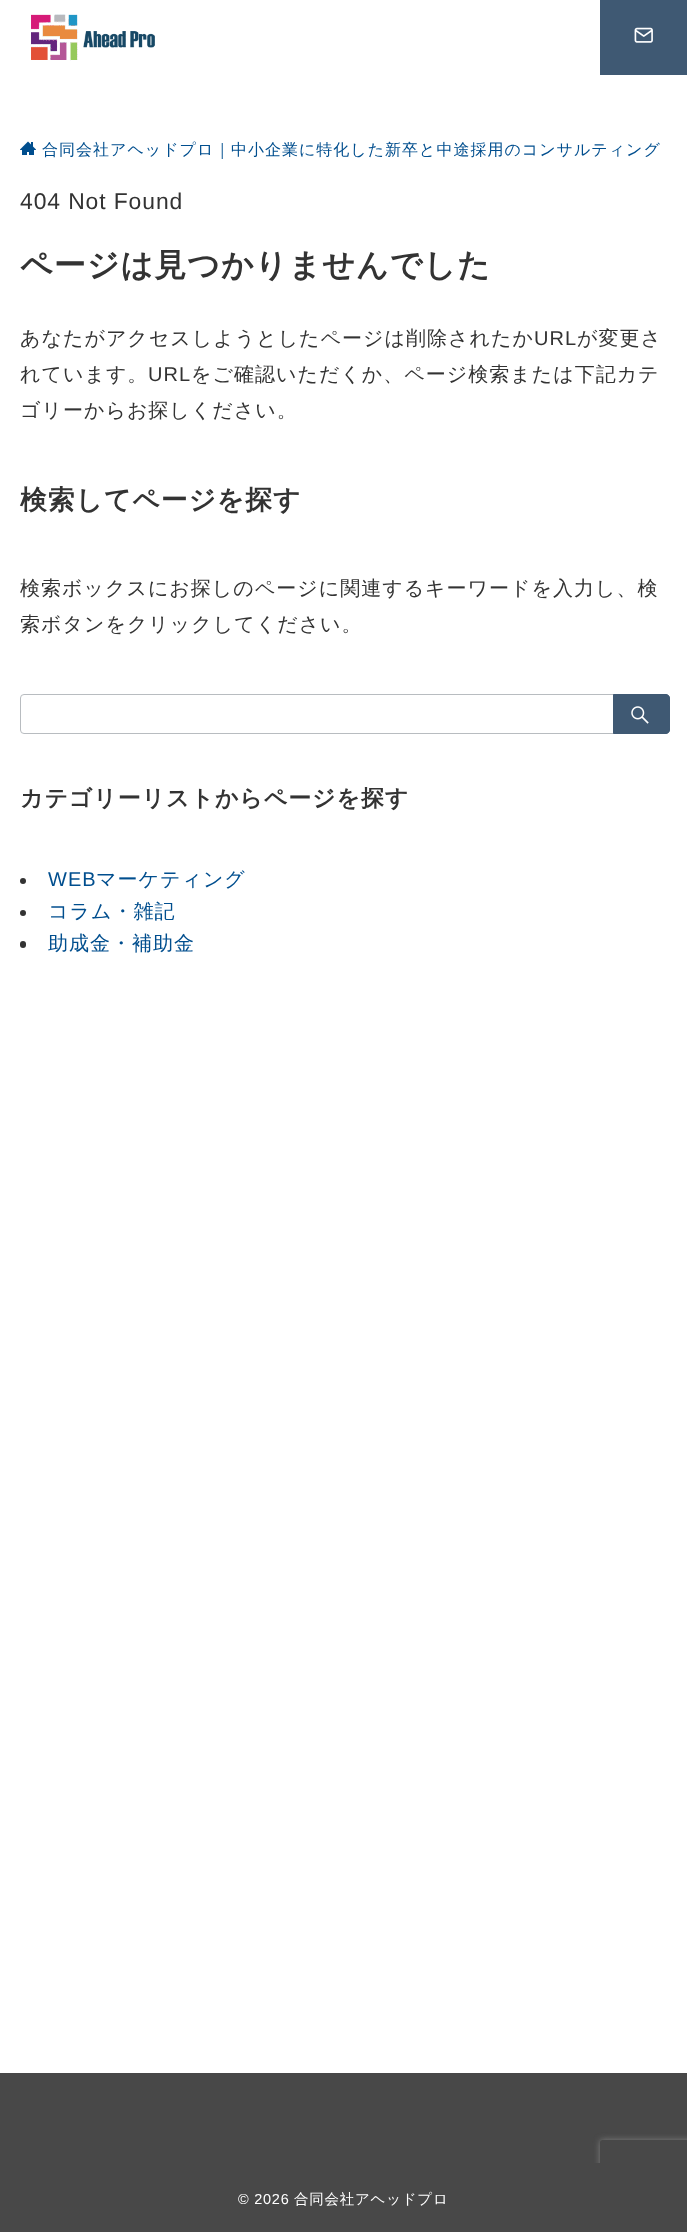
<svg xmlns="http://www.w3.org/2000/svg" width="687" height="2232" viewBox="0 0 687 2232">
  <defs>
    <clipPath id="clip1"><path d="M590 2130H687V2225H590ZM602.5 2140H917.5C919 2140 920 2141 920 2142.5V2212.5C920 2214 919 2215 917.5 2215H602.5C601 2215 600 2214 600 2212.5V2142.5C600 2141 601 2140 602.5 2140Z" clip-rule="evenodd"/></clipPath>
  </defs>
  <rect width="100%" height="100%" fill="rgb(255,255,255)"/>
  <image x="31" y="14" width="124" height="47" href="pic1.png"/>
  <rect x="600" y="0" width="87" height="75" fill="rgb(63,89,115)"/>
  <image x="634" y="27" width="19" height="16" href="pic2.png"/>
  <image x="20" y="141" width="16" height="14" href="pic3.png"/>
  <text x="42" y="155" font-family="WenQuanYi Zen Hei" font-size="16" font-weight="500" letter-spacing="1" fill="rgb(0,78,142)">合同会社アヘッドプロ｜中小企業に特化した新卒と中途採用のコンサルティング</text>
  <text x="20" y="209" font-family="Liberation Sans" font-size="22.9" letter-spacing="0.9" fill="rgb(51,51,51)">404 Not Found</text>
  <text x="20" y="276" font-family="WenQuanYi Zen Hei" font-size="32" font-weight="bold" letter-spacing="1" fill="rgb(51,51,51)">ページは見つかりませんでした</text>
  <text x="20" y="345" font-family="WenQuanYi Zen Hei" font-size="20" font-weight="500" letter-spacing="1" fill="rgb(51,51,51)">あなたがアクセスしようとしたページは削除されたか</text>
  <text x="534" y="345" font-family="Liberation Sans" font-size="20" letter-spacing="1" fill="rgb(51,51,51)">URL</text>
  <g font-family="WenQuanYi Zen Hei" font-size="20" font-weight="500" letter-spacing="1" fill="rgb(51,51,51)">
    <text x="577" y="345">が変更さ</text>
    <text x="20" y="381">れています。</text>
  </g>
  <text x="148" y="381" font-family="Liberation Sans" font-size="20" letter-spacing="1" fill="rgb(51,51,51)">URL</text>
  <g font-family="WenQuanYi Zen Hei" font-size="20" font-weight="500" letter-spacing="1" fill="rgb(51,51,51)">
    <text x="191" y="381">をご確認いただくか、ページ検索または下記カテ</text>
    <text x="20" y="417">ゴリーからお探しください。</text>
  </g>
  <text x="20" y="509" font-family="WenQuanYi Zen Hei" font-size="26.75" font-weight="bold" letter-spacing="1" fill="rgb(51,51,51)">検索してページを探す</text>
  <g font-family="WenQuanYi Zen Hei" font-size="20" font-weight="500" letter-spacing="1" fill="rgb(51,51,51)">
    <text>
      <tspan x="20" y="595">検索ボックスにお探しのページに関連するキーワードを入力し、検</tspan>
      <tspan x="20" y="631">索ボタンをクリックしてください。</tspan>
    </text>
  </g>
  <rect x="20.5" y="694.5" width="647" height="39" rx="3.5" fill="none" stroke="rgb(184,188,192)"/>
  <path d="M613.5 694.5H666C668 694.5 669.5 696 669.5 698V730C669.5 732 668 733.5 666 733.5H613.5Z" fill="rgb(63,89,115)" stroke="rgb(63,89,115)"/>
  <image x="631" y="706" width="18" height="18" href="pic4.png"/>
  <text x="20" y="806" font-family="WenQuanYi Zen Hei" font-size="22.9" font-weight="bold" letter-spacing="1" fill="rgb(51,51,51)">カテゴリーリストからページを探す</text>
  <circle cx="23" cy="881" r="3" fill="rgb(51,51,51)"/>
  <text x="48" y="886" font-family="Liberation Sans" font-size="20" letter-spacing="1" fill="rgb(0,78,142)">WEB</text>
  <text x="96" y="886" font-family="WenQuanYi Zen Hei" font-size="20" font-weight="500" letter-spacing="1" fill="rgb(0,78,142)">マーケティング</text>
  <circle cx="23" cy="913" r="3" fill="rgb(51,51,51)"/>
  <text x="48" y="918" font-family="WenQuanYi Zen Hei" font-size="20" font-weight="500" letter-spacing="1" fill="rgb(0,78,142)">コラム・雑記</text>
  <rect x="20" y="941" width="6" height="7" rx="3" fill="rgb(51,51,51)"/>
  <text x="48" y="950" font-family="WenQuanYi Zen Hei" font-size="20" font-weight="500" letter-spacing="1" fill="rgb(0,78,142)">助成金・補助金</text>
  <rect x="0" y="2073" width="687" height="90" fill="rgb(72,72,72)"/>
  <g clip-path="url(#clip1)">
    <rect x="600" y="2140" width="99" height="75" rx="2.5" fill="rgb(128,128,128)" filter="blur(3px)"/>
  </g>
  <rect x="0" y="2163" width="687" height="69" fill="rgb(72,72,72)"/>
  <text x="238" y="2204" font-family="Liberation Sans" font-size="14.5" letter-spacing="0.75" fill="rgb(255,255,255)">© 2026</text>
  <text x="294" y="2204" font-family="WenQuanYi Zen Hei" font-size="14.5" font-weight="500" letter-spacing="0.75" fill="rgb(255,255,255)">合同会社アヘッドプロ</text>
</svg>
